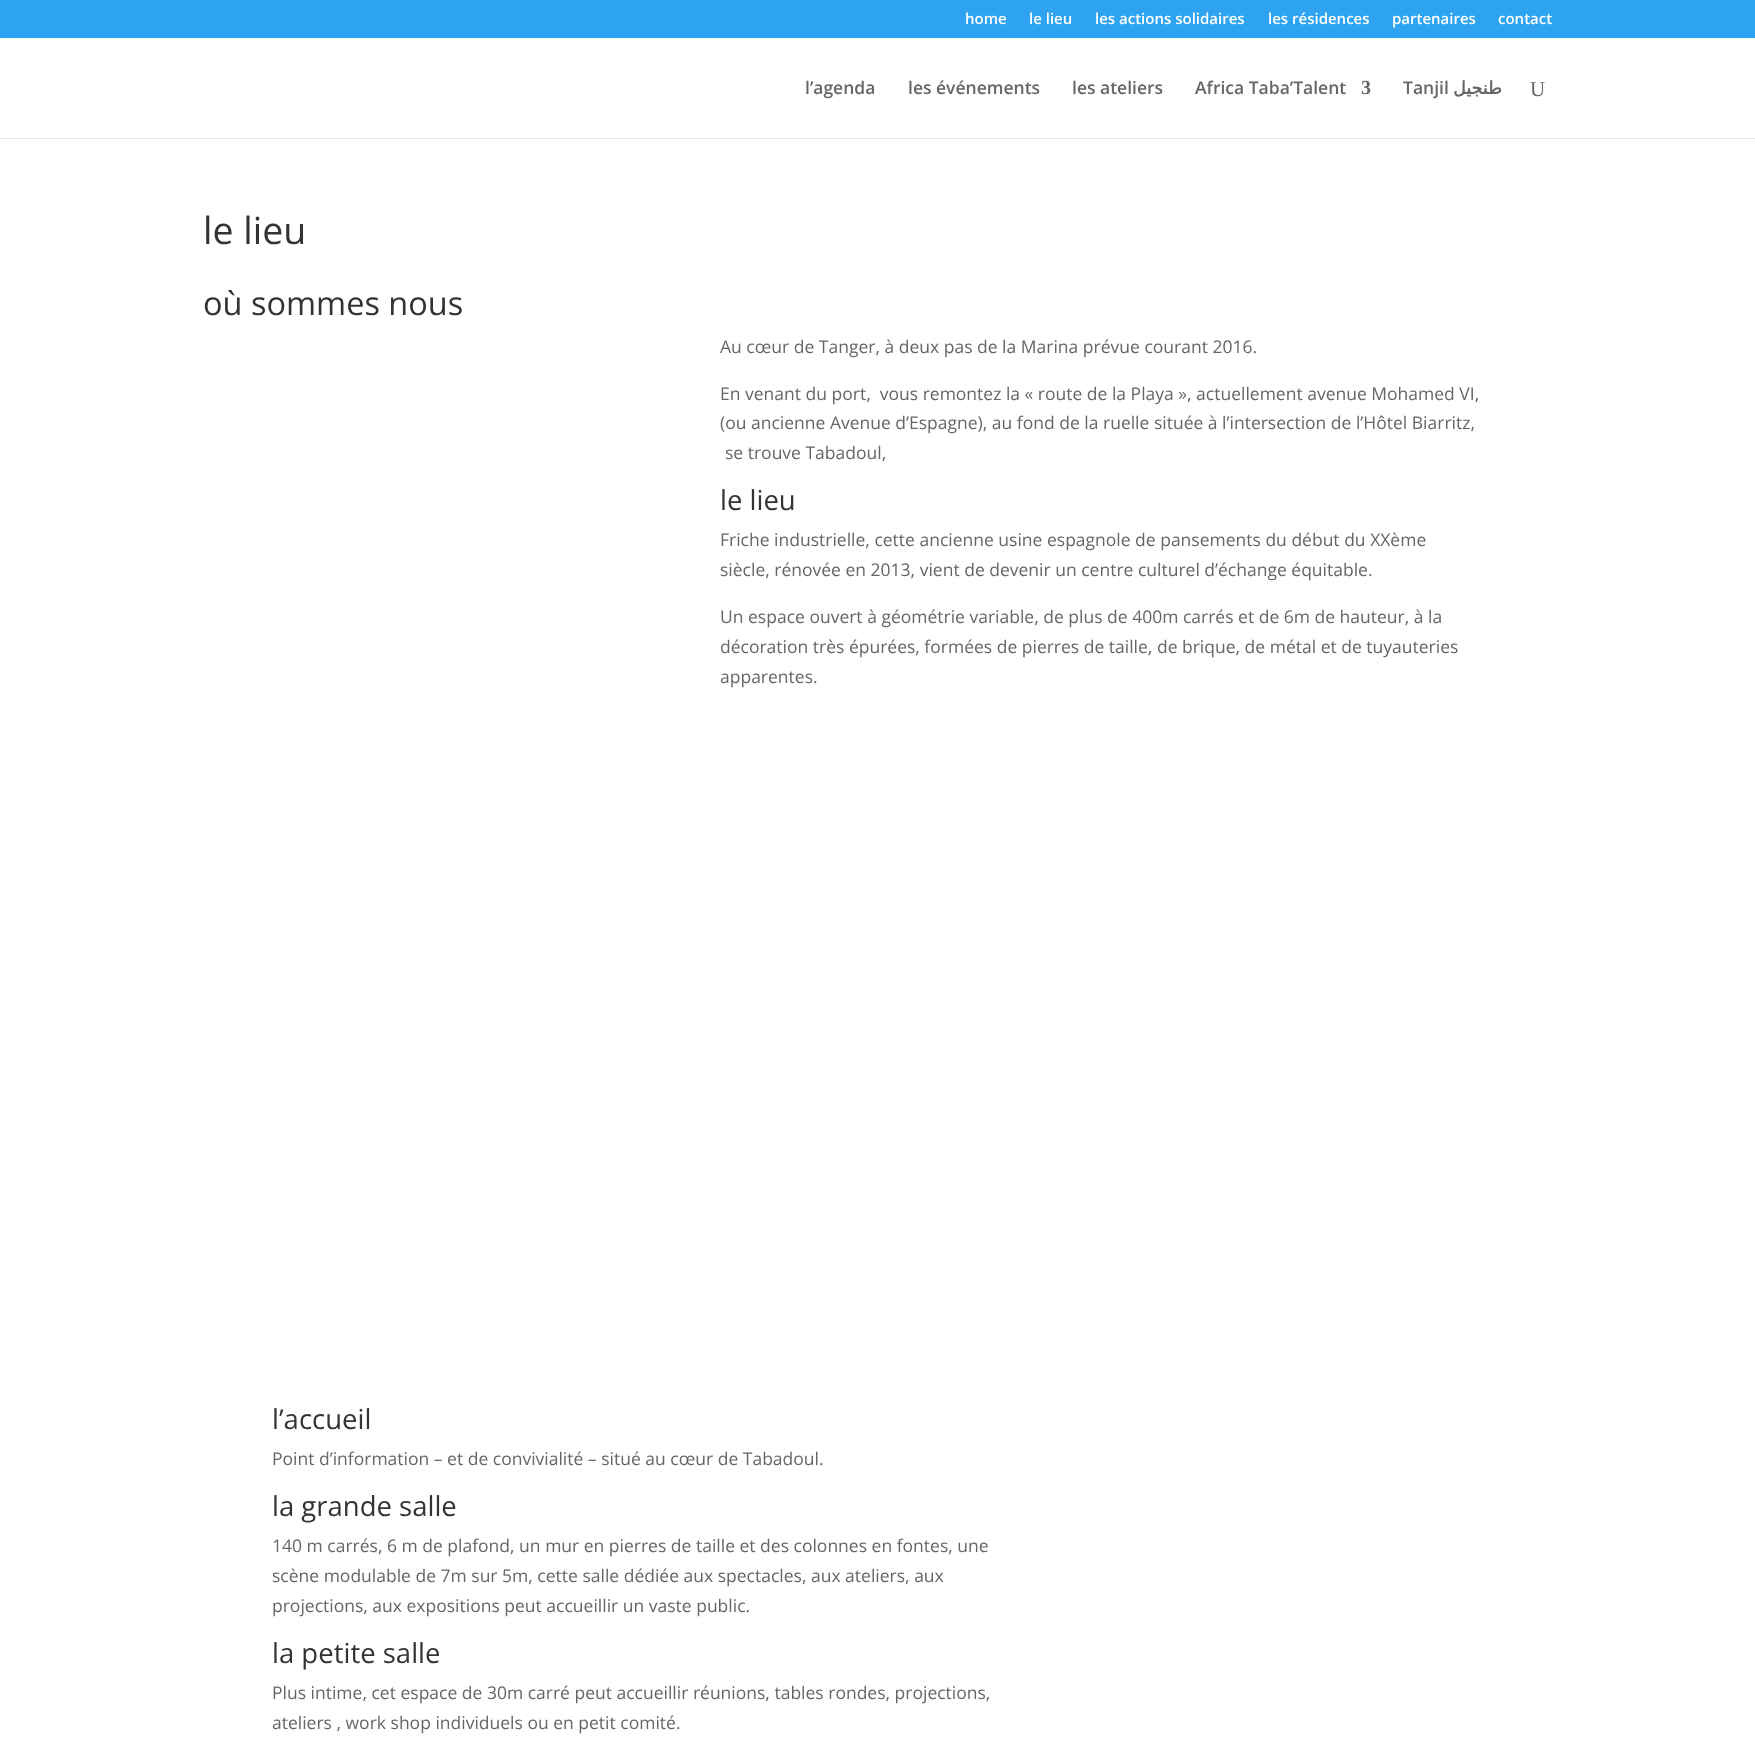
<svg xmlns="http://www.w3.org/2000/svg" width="1755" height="1751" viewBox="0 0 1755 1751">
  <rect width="100%" height="100%" fill="rgb(255,255,255)"/>
  <rect x="0" y="0" width="1755" height="38" fill="rgb(46,163,242)"/>
  <g font-family="Open Sans" font-size="15" font-weight="600" fill="rgb(255,255,255)">
    <text x="965" y="24">home</text>
    <text x="1029" y="24">le lieu</text>
    <text x="1095" y="24">les actions solidaires</text>
    <text x="1268" y="24">les résidences</text>
    <text x="1392" y="24">partenaires</text>
    <text x="1498" y="24">contact</text>
  </g>
  <rect x="0" y="138" width="1755" height="1" fill="rgb(230,230,230)"/>
  <g font-family="Open Sans" font-size="17.5" font-weight="600" fill="rgb(102,102,102)">
    <text x="805" y="94">l’agenda</text>
    <text x="908" y="94">les événements</text>
    <text x="1072" y="94">les ateliers</text>
    <text x="1195" y="94">Africa Taba’Talent</text>
  </g>
  <text x="1361" y="94" font-family="Liberation Serif" font-size="20" font-weight="bold" fill="rgb(102,102,102)">3</text>
  <text x="1403" y="94" font-family="Open Sans" font-size="17.5" font-weight="600" fill="rgb(102,102,102)">Tanjil</text>
  <text x="1502" y="94" font-family="DejaVu Sans" font-size="17.5" font-weight="bold" direction="rtl" fill="rgb(102,102,102)">طنجيل</text>
  <text x="1530" y="96" font-family="Liberation Serif" font-size="21" fill="rgb(102,102,102)">U</text>
  <text x="203" y="244" font-family="Open Sans" font-size="37.5" fill="rgb(51,51,51)">le lieu</text>
  <text x="203" y="315" font-family="Open Sans" font-size="32.5" fill="rgb(51,51,51)">où sommes nous</text>
  <g font-family="Open Sans" font-size="17.5" fill="rgb(102,102,102)">
    <text x="720" y="353">Au cœur de Tanger, à deux pas de la Marina prévue courant 2016.</text>
    <text xml:space="preserve"><tspan x="720" y="400">En venant du port,  vous remontez la « route de la Playa », actuellement avenue Mohamed VI,</tspan><tspan x="720" y="429">(ou ancienne Avenue d’Espagne), au fond de la ruelle située à l’intersection de l’Hôtel Biarritz,</tspan></text>
    <text x="725" y="459">se trouve Tabadoul,</text>
  </g>
  <text x="720" y="510" font-family="Open Sans" font-size="27.5" fill="rgb(51,51,51)">le lieu</text>
  <g font-family="Open Sans" font-size="17.5" fill="rgb(102,102,102)">
    <text>
      <tspan x="720" y="546">Friche industrielle, cette ancienne usine espagnole de pansements du début du XXème</tspan>
      <tspan x="720" y="576">siècle, rénovée en 2013, vient de devenir un centre culturel d’échange équitable.</tspan>
    </text>
    <text>
      <tspan x="720" y="623">Un espace ouvert à géométrie variable, de plus de 400m carrés et de 6m de hauteur, à la</tspan>
      <tspan x="720" y="653">décoration très épurées, formées de pierres de taille, de brique, de métal et de tuyauteries</tspan>
      <tspan x="720" y="683">apparentes.</tspan>
    </text>
  </g>
  <text x="272" y="1429" font-family="Open Sans" font-size="27.5" fill="rgb(51,51,51)">l’accueil</text>
  <text x="272" y="1465" font-family="Open Sans" font-size="17.5" fill="rgb(102,102,102)">Point d’information – et de convivialité – situé au cœur de Tabadoul.</text>
  <text x="272" y="1516" font-family="Open Sans" font-size="27.5" fill="rgb(51,51,51)">la grande salle</text>
  <g font-family="Open Sans" font-size="17.5" fill="rgb(102,102,102)">
    <text>
      <tspan x="272" y="1552">140 m carrés, 6 m de plafond, un mur en pierres de taille et des colonnes en fontes, une</tspan>
      <tspan x="272" y="1582">scène modulable de 7m sur 5m, cette salle dédiée aux spectacles, aux ateliers, aux</tspan>
      <tspan x="272" y="1612">projections, aux expositions peut accueillir un vaste public.</tspan>
    </text>
  </g>
  <text x="272" y="1663" font-family="Open Sans" font-size="27.5" fill="rgb(51,51,51)">la petite salle</text>
  <g font-family="Open Sans" font-size="17.5" fill="rgb(102,102,102)">
    <text>
      <tspan x="272" y="1699">Plus intime, cet espace de 30m carré peut accueillir réunions, tables rondes, projections,</tspan>
      <tspan x="272" y="1729">ateliers , work shop individuels ou en petit comité.</tspan>
    </text>
  </g>
</svg>
